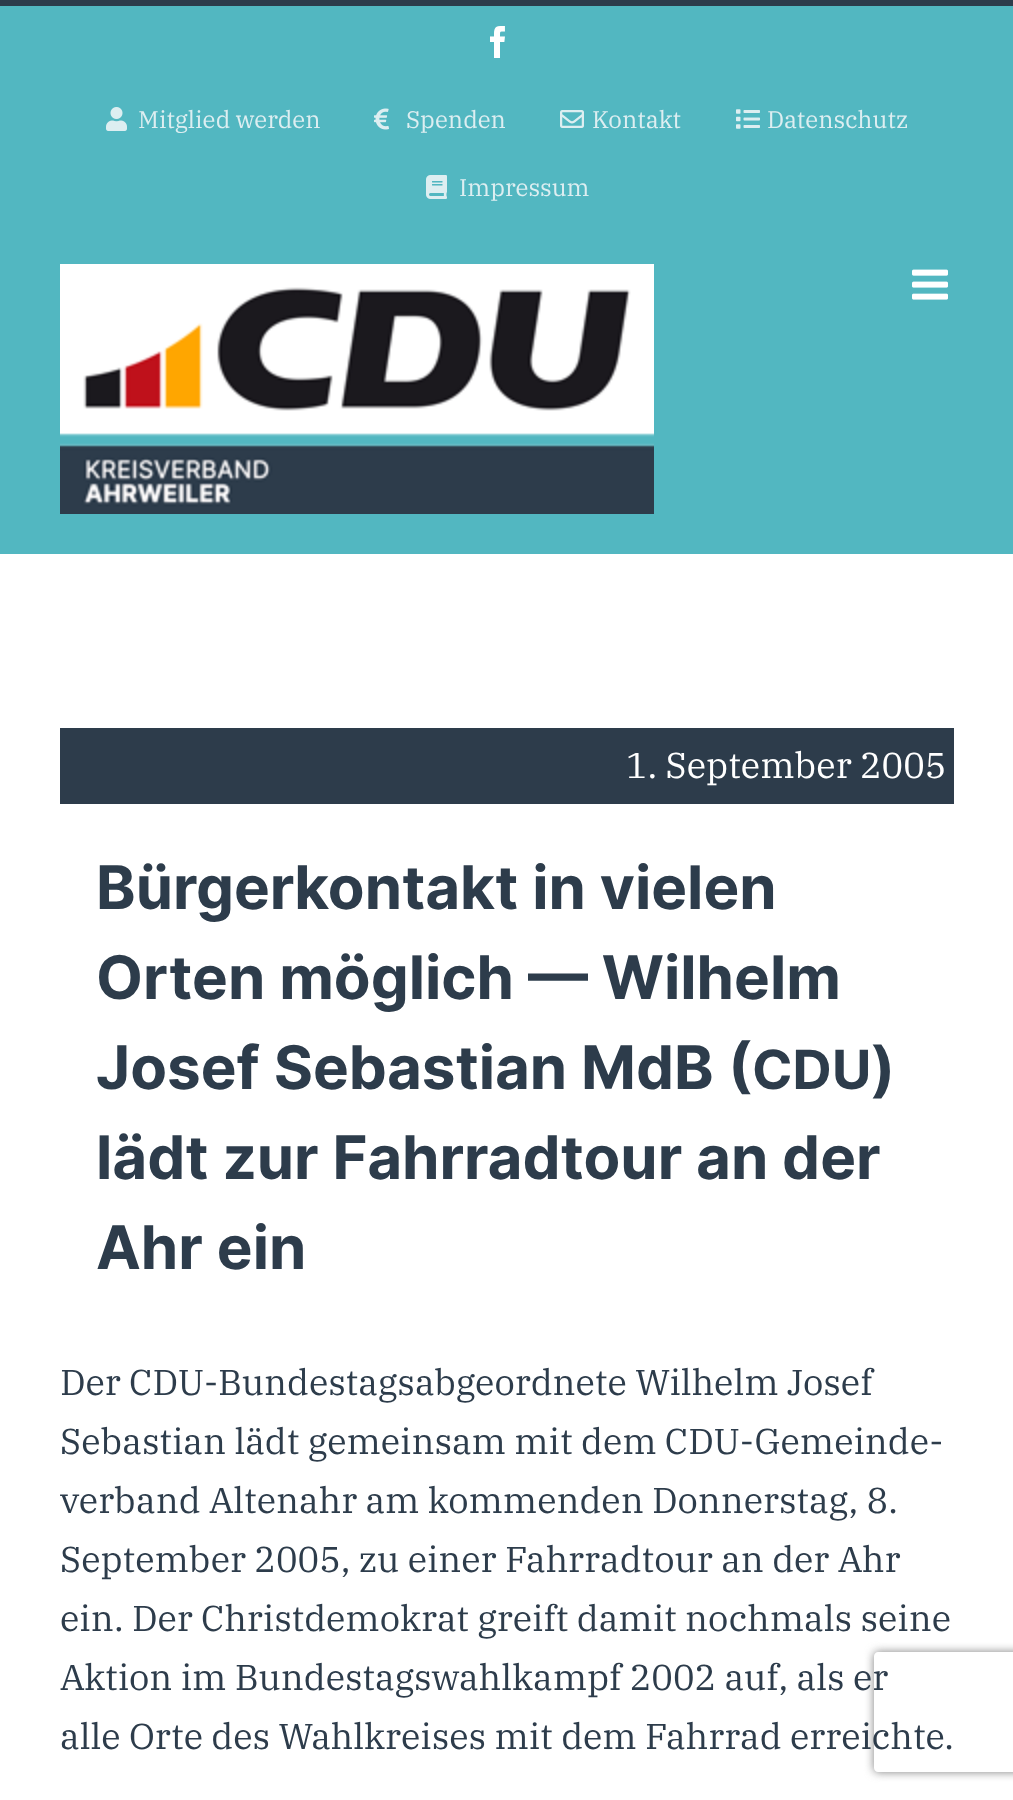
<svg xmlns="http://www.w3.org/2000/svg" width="1013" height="1800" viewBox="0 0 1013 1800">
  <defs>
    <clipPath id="clip1"><path d="M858 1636H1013V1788H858ZM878 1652H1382C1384 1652 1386 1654 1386 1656V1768C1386 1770 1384 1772 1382 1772H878C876 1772 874 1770 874 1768V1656C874 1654 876 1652 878 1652Z" clip-rule="evenodd"/></clipPath>
  </defs>
  <rect width="100%" height="100%" fill="rgb(255,255,255)"/>
  <rect x="0" y="6" width="1013" height="548" fill="rgb(82,183,193)"/>
  <rect x="0" y="0" width="1013" height="6" fill="rgb(45,60,75)"/>
  <image x="490" y="26" width="15" height="32" href="pic1.png"/>
  <image x="106" y="107" width="21" height="24" href="pic2.png"/>
  <text x="138" y="128" font-family="IBM Plex Serif" font-size="24" fill="rgb(221,238,241)">Mitglied werden</text>
  <image x="374" y="108" width="15" height="22" href="pic3.png"/>
  <text x="406" y="128" font-family="IBM Plex Serif" font-size="24" fill="rgb(221,238,241)">Spenden</text>
  <image x="560" y="110" width="24" height="18" href="pic4.png"/>
  <text x="592" y="128" font-family="IBM Plex Serif" font-size="24" fill="rgb(221,238,241)">Kontakt</text>
  <image x="736" y="109" width="24" height="20" href="pic5.png"/>
  <text x="767" y="128" font-family="IBM Plex Serif" font-size="24" fill="rgb(221,238,241)">Datenschutz</text>
  <image x="426" y="175" width="21" height="24" href="pic6.png"/>
  <text x="459" y="196" font-family="IBM Plex Serif" font-size="24" fill="rgb(221,238,241)">Impressum</text>
  <image x="60" y="264" width="594" height="250" href="pic7.png"/>
  <image x="912" y="269" width="36" height="31" href="pic8.png"/>
  <rect x="60" y="728" width="894" height="76" fill="rgb(45,60,75)"/>
  <text x="626" y="778" font-family="IBM Plex Serif" font-size="36" fill="rgb(255,255,255)">1. September 2005</text>
  <g font-family="Inter" font-size="60" font-weight="bold" fill="rgb(45,60,75)">
    <text>
      <tspan x="96" y="909">Bürgerkontakt in vielen</tspan>
      <tspan x="96" y="999">Orten möglich — Wilhelm</tspan>
      <tspan x="96" y="1089">Josef Sebastian MdB (</tspan>
    </text>
  </g>
  <text x="752" y="1089" font-family="Inter" font-size="54" font-weight="bold" fill="rgb(45,60,75)">CDU</text>
  <g font-family="Inter" font-size="60" font-weight="bold" fill="rgb(45,60,75)">
    <text x="871" y="1089">)</text>
    <text>
      <tspan x="96" y="1179">lädt zur Fahrradtour an der</tspan>
      <tspan x="96" y="1269">Ahr ein</tspan>
    </text>
  </g>
  <g font-family="IBM Plex Serif" font-size="36" fill="rgb(45,60,75)">
    <text>
      <tspan x="60" y="1395">Der CDU-Bundestagsabgeordnete Wilhelm Josef</tspan>
      <tspan x="60" y="1454">Sebastian lädt gemeinsam mit dem CDU-Gemeinde-</tspan>
      <tspan x="60" y="1513">verband Altenahr am kommenden Donnerstag, 8.</tspan>
      <tspan x="60" y="1572">September 2005, zu einer Fahrradtour an der Ahr</tspan>
    </text>
  </g>
  <g clip-path="url(#clip1)">
    <rect x="874" y="1652" width="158" height="120" rx="4" fill="rgb(128,128,128)" filter="blur(5px)"/>
  </g>
  <g font-family="IBM Plex Serif" font-size="36" fill="rgb(45,60,75)">
    <text>
      <tspan x="60" y="1631">ein. Der Christdemokrat greift damit nochmals seine</tspan>
      <tspan x="60" y="1690">Aktion im Bundestagswahlkampf 2002 auf, als er</tspan>
      <tspan x="60" y="1749">alle Orte des Wahlkreises mit dem Fahrrad erreichte.</tspan>
    </text>
  </g>
</svg>
